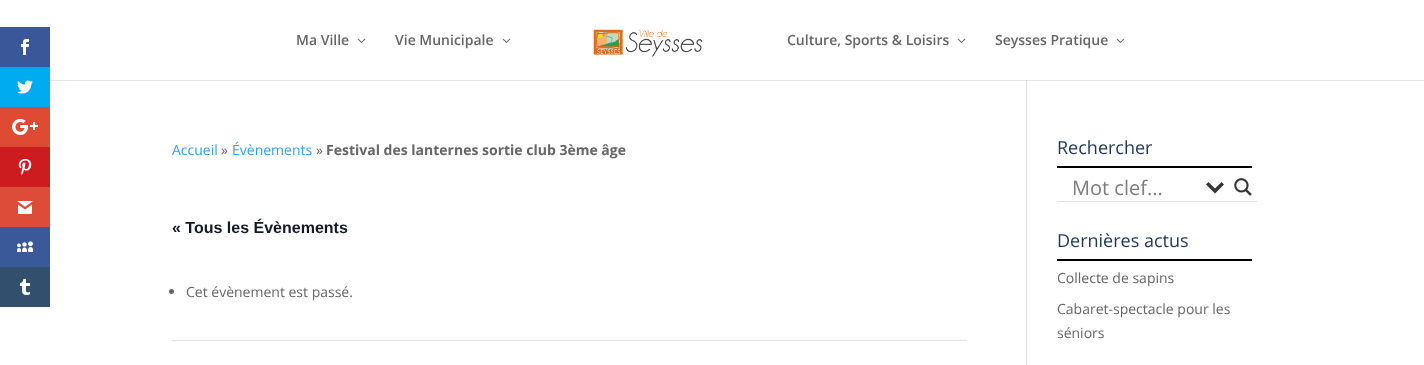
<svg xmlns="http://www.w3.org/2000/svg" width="1424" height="365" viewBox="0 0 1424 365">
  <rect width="100%" height="100%" fill="rgb(255,255,255)"/>
  <rect x="50" y="80" width="1374" height="1" fill="rgb(230,230,230)"/>
  <rect x="0" y="27" width="50" height="40" fill="rgb(58,87,154)"/>
  <image x="21" y="39" width="8" height="16" href="pic1.png"/>
  <rect x="0" y="67" width="50" height="40" fill="rgb(0,171,240)"/>
  <image x="17" y="80" width="16" height="14" href="pic2.png"/>
  <rect x="0" y="107" width="50" height="40" fill="rgb(223,74,50)"/>
  <image x="12" y="119" width="26" height="16" href="pic3.png"/>
  <rect x="0" y="147" width="50" height="40" fill="rgb(205,28,31)"/>
  <image x="18" y="159" width="14" height="16" href="pic4.png"/>
  <rect x="0" y="187" width="50" height="40" fill="rgb(221,75,57)"/>
  <image x="17" y="201" width="16" height="13" href="pic5.png"/>
  <rect x="0" y="227" width="50" height="40" fill="rgb(58,89,152)"/>
  <image x="17" y="241" width="16" height="11" href="pic6.png"/>
  <rect x="0" y="267" width="50" height="40" fill="rgb(50,80,109)"/>
  <image x="20" y="279" width="10" height="16" href="pic7.png"/>
  <text x="296" y="45" font-family="Open Sans" font-size="14" font-weight="600" fill="rgb(102,102,102)">Ma Ville</text>
  <image x="357" y="38" width="9" height="5" href="pic8.png"/>
  <text x="395" y="45" font-family="Open Sans" font-size="14" font-weight="600" fill="rgb(102,102,102)">Vie Municipale</text>
  <image x="502" y="38" width="9" height="5" href="pic8.png"/>
  <image x="593" y="29" width="110" height="28" href="pic9.png"/>
  <text x="787" y="45" font-family="Open Sans" font-size="14" font-weight="600" fill="rgb(102,102,102)">Culture, Sports &amp; Loisirs</text>
  <image x="957" y="38" width="9" height="5" href="pic8.png"/>
  <text x="995" y="45" font-family="Open Sans" font-size="14" font-weight="600" fill="rgb(102,102,102)">Seysses Pratique</text>
  <image x="1116" y="38" width="9" height="5" href="pic8.png"/>
  <rect x="1026" y="81" width="1" height="284" fill="rgb(226,226,226)"/>
  <rect x="1026" y="80" width="1" height="1" fill="rgb(203,203,203)"/>
  <text x="172" y="155" font-family="Open Sans" font-size="14" fill="rgb(46,163,242)">Accueil</text>
  <text x="221" y="155" font-family="Open Sans" font-size="14" fill="rgb(102,102,102)">»</text>
  <text x="232" y="155" font-family="Open Sans" font-size="14" fill="rgb(46,163,242)">Évènements</text>
  <text x="316" y="155" font-family="Open Sans" font-size="14" fill="rgb(102,102,102)">»</text>
  <text x="326" y="155" font-family="Open Sans" font-size="14" font-weight="bold" fill="rgb(102,102,102)">Festival des lanternes sortie club 3ème âge</text>
  <text x="172" y="233" font-family="Liberation Sans" font-size="16" font-weight="bold" fill="rgb(20,24,39)">« Tous les Évènements</text>
  <rect x="172" y="340" width="795" height="1" fill="rgb(228,228,228)"/>
  <circle cx="171.5" cy="291.5" r="2.5" fill="rgb(102,102,102)"/>
  <text x="186" y="297" font-family="Open Sans" font-size="14" fill="rgb(102,102,102)">Cet évènement est passé.</text>
  <rect x="1057" y="166" width="195" height="2" fill="rgb(0,0,0)"/>
  <text x="1057" y="154" font-family="Open Sans" font-size="18" fill="rgb(30,54,89)">Rechercher</text>
  <rect x="1057" y="201" width="200" height="1" fill="rgb(228,228,228)"/>
  <text x="1072" y="195" font-family="Open Sans" font-size="20" fill="rgb(125,125,125)">Mot clef...</text>
  <path d="M1221.5 182L1224 184.5L1215 193.5L1206 184.5L1208.5 182L1215 188.5Z" fill="rgb(54,54,54)"/>
  <image x="1234" y="178" width="18" height="18" href="pic10.png"/>
  <rect x="1057" y="259" width="195" height="2" fill="rgb(0,0,0)"/>
  <text x="1057" y="247" font-family="Open Sans" font-size="18" fill="rgb(30,54,89)">Dernières actus</text>
  <g font-family="Open Sans" font-size="14" fill="rgb(102,102,102)">
    <text x="1057" y="283">Collecte de sapins</text>
    <text>
      <tspan x="1057" y="314">Cabaret-spectacle pour les</tspan>
      <tspan x="1057" y="338">séniors</tspan>
    </text>
  </g>
</svg>
